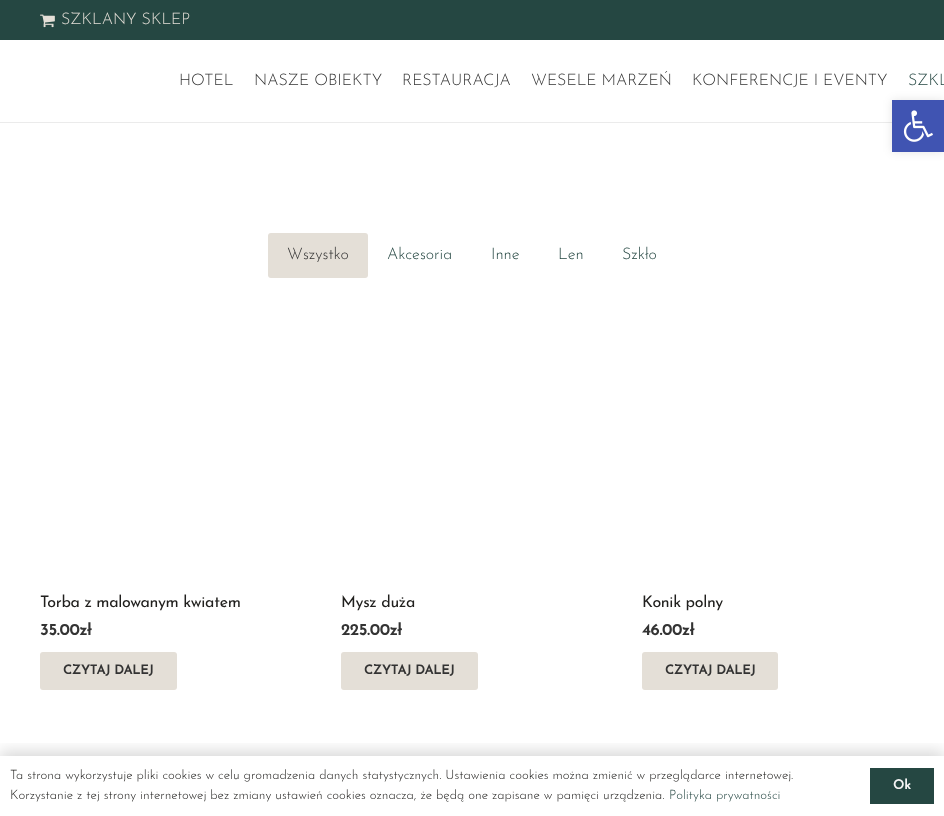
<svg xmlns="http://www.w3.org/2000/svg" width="944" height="816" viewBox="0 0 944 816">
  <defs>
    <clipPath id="clip1"><rect x="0" y="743" width="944" height="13"/></clipPath>
  </defs>
  <rect width="100%" height="100%" fill="rgb(255,255,255)"/>
  <rect x="0" y="0" width="944" height="40" fill="rgb(37,71,66)"/>
  <image x="40" y="14" width="15" height="14" href="pic1.png"/>
  <text x="61" y="24" font-family="Josefin Sans" font-size="16" font-weight="300" fill="rgb(228,223,215)">SZKLANY SKLEP</text>
  <rect x="0" y="122" width="892" height="1" fill="rgb(235,235,235)"/>
  <g font-family="Josefin Sans" font-size="16" font-weight="300" fill="rgb(51,51,51)">
    <text x="179" y="85">HOTEL</text>
    <text x="254" y="85">NASZE OBIEKTY</text>
    <text x="402" y="85">RESTAURACJA</text>
    <text x="531" y="85">WESELE MARZEŃ</text>
    <text x="692" y="85">KONFERENCJE I EVENTY</text>
  </g>
  <text x="908" y="85" font-family="Josefin Sans" font-size="16" font-weight="300" fill="rgb(37,71,66)">SZKL</text>
  <rect x="268" y="233" width="100" height="45" rx="3" fill="rgb(228,223,215)"/>
  <text x="287" y="259" font-family="Josefin Sans" font-size="16" font-weight="300" fill="rgb(51,51,51)">Wszystko</text>
  <g font-family="Josefin Sans" font-size="16" font-weight="300" fill="rgb(37,71,66)">
    <text x="387" y="259">Akcesoria</text>
    <text x="491" y="259">Inne</text>
    <text x="558" y="259">Len</text>
    <text x="622" y="259">Szkło</text>
  </g>
  <text x="40" y="607" font-family="Josefin Sans" font-size="16" letter-spacing="-0.3" fill="rgb(33,32,30)">Torba z malowanym kwiatem</text>
  <text x="40" y="635" font-family="Josefin Sans" font-size="16" font-weight="bold" fill="rgb(51,51,51)">35.00zł</text>
  <rect x="40" y="652" width="137" height="38" rx="3" fill="rgb(228,223,215)"/>
  <text x="63" y="674" font-family="Josefin Sans" font-size="12.75" font-weight="bold" fill="rgb(51,51,51)">CZYTAJ DALEJ</text>
  <text x="341" y="607" font-family="Josefin Sans" font-size="16" letter-spacing="-0.3" fill="rgb(33,32,30)">Mysz duża</text>
  <text x="341" y="635" font-family="Josefin Sans" font-size="16" font-weight="bold" fill="rgb(51,51,51)">225.00zł</text>
  <rect x="341" y="652" width="137" height="38" rx="3" fill="rgb(228,223,215)"/>
  <text x="364" y="674" font-family="Josefin Sans" font-size="12.75" font-weight="bold" fill="rgb(51,51,51)">CZYTAJ DALEJ</text>
  <text x="642" y="607" font-family="Josefin Sans" font-size="16" letter-spacing="-0.3" fill="rgb(33,32,30)">Konik polny</text>
  <text x="642" y="635" font-family="Josefin Sans" font-size="16" font-weight="bold" fill="rgb(51,51,51)">46.00zł</text>
  <rect x="642" y="652" width="136" height="38" rx="3" fill="rgb(228,223,215)"/>
  <text x="665" y="674" font-family="Josefin Sans" font-size="12.75" font-weight="bold" fill="rgb(51,51,51)">CZYTAJ DALEJ</text>
  <rect x="892" y="100" width="52" height="52" fill="rgba(0,0,0,0.1)" filter="blur(5px)"/>
  <rect x="892" y="100" width="52" height="52" fill="rgb(64,84,178)"/>
  <image x="903" y="110" width="30" height="32" href="pic2.png"/>
  <g clip-path="url(#clip1)">
    <rect x="0" y="751" width="944" height="60" fill="rgba(0,0,0,0.15)" filter="blur(7.5px)"/>
  </g>
  <g font-family="Josefin Sans" font-size="13" font-weight="300" fill="rgb(33,32,30)">
    <text>
      <tspan x="10" y="779">Ta strona wykorzystuje pliki cookies w celu gromadzenia danych statystycznych. Ustawienia cookies można zmienić w przeglądarce internetowej.</tspan>
      <tspan x="10" y="799">Korzystanie z tej strony internetowej bez zmiany ustawień cookies oznacza, że będą one zapisane w pamięci urządzenia.</tspan>
    </text>
  </g>
  <text x="669" y="799" font-family="Josefin Sans" font-size="13" font-weight="300" fill="rgb(37,71,66)">Polityka prywatności</text>
  <rect x="870" y="768" width="64" height="36" fill="rgb(37,71,66)"/>
  <text x="893" y="789" font-family="Josefin Sans" font-size="13" font-weight="bold" fill="rgb(245,245,245)">Ok</text>
</svg>
